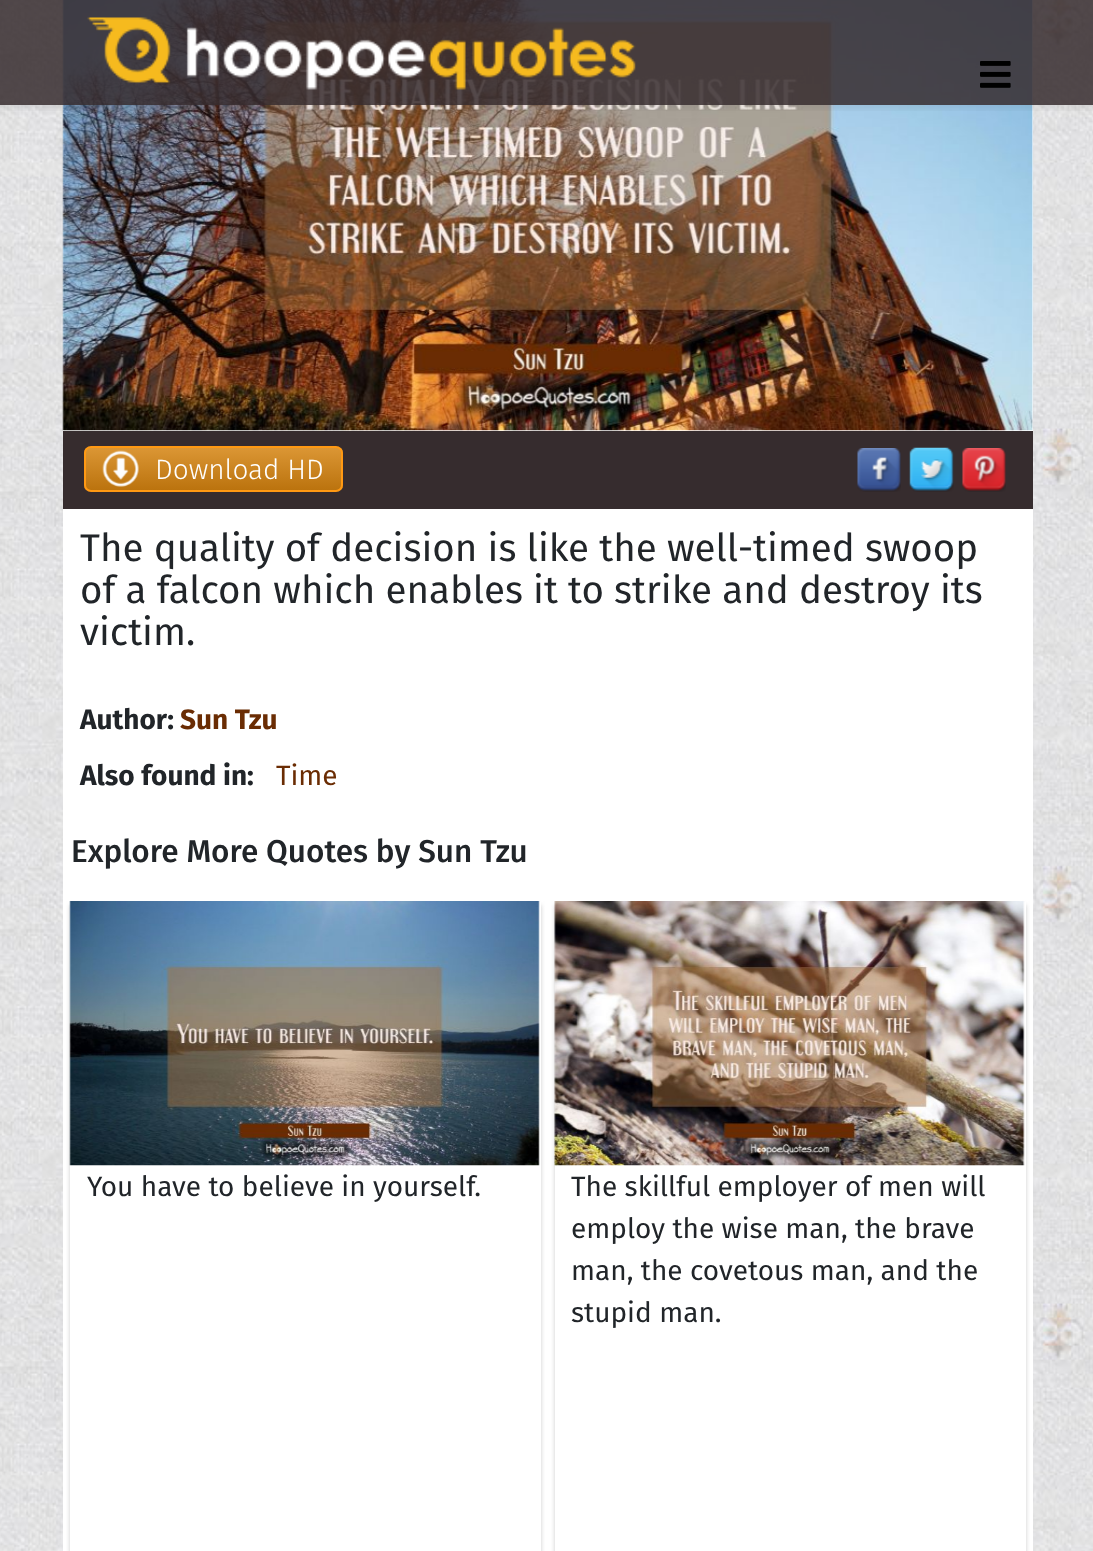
<svg xmlns="http://www.w3.org/2000/svg" width="1093" height="1551" viewBox="0 0 1093 1551">
  <defs>
    <clipPath id="clip1"><rect x="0" y="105" width="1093" height="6"/></clipPath>
    <clipPath id="clip2"><rect x="84" y="446" width="259" height="46" rx="7"/></clipPath>
    <linearGradient id="g1" gradientUnits="userSpaceOnUse" x1="214" y1="448" x2="214" y2="490"><stop offset="0" stop-color="rgb(219,150,52)"/><stop offset="1" stop-color="rgb(187,115,14)"/></linearGradient>
  </defs>
  <rect width="100%" height="100%" fill="rgb(255,255,255)"/>
  <image x="0" y="0" width="1093" height="1551" href="pic1.png"/>
  <rect x="63" y="0" width="970" height="1551" fill="rgb(255,255,255)"/>
  <image x="62" y="0" width="971" height="431" href="pic4.png"/>
  <g clip-path="url(#clip1)">
    <rect x="0" y="5" width="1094" height="105" fill="rgba(0,0,0,0.05)" filter="blur(2.5px)"/>
  </g>
  <rect x="0" y="0" width="1093" height="105" fill="rgba(54,44,46,0.85)"/>
  <image x="87" y="17" width="549" height="73" href="pic2.png"/>
  <image x="980" y="61" width="31" height="27" href="pic3.png"/>
  <rect x="63" y="431" width="970" height="78" fill="rgb(54,44,46)"/>
  <g clip-path="url(#clip2)">
    <rect x="84" y="448" width="259" height="42" fill="url(#g1)"/>
  </g>
  <rect x="85" y="447" width="257" height="44" rx="6" fill="none" stroke="rgb(255,153,19)" stroke-width="2"/>
  <image x="102" y="450" width="37" height="37" href="pic5.png"/>
  <text x="155" y="479" font-family="Fira Sans" font-size="28" font-weight="300" fill="rgb(255,255,255)">Download HD</text>
  <image x="857" y="448" width="44" height="44" href="pic6.png"/>
  <image x="909" y="447" width="45" height="45" href="pic7.png"/>
  <image x="962" y="448" width="44" height="44" href="pic8.png"/>
  <g font-family="Fira Sans" font-size="38.5" fill="rgb(33,37,41)">
    <text>
      <tspan x="80" y="561">The quality of decision is like the well-timed swoop</tspan>
      <tspan x="80" y="603">of a falcon which enables it to strike and destroy its</tspan>
      <tspan x="80" y="645">victim.</tspan>
    </text>
  </g>
  <text x="80" y="729" font-family="Fira Sans" font-size="28" font-weight="bold" fill="rgb(33,37,41)">Author:</text>
  <text x="180" y="729" font-family="Fira Sans" font-size="28" font-weight="bold" fill="rgb(106,44,3)">Sun Tzu</text>
  <text x="80" y="785" font-family="Fira Sans" font-size="28" font-weight="bold" fill="rgb(33,37,41)">Also found in:</text>
  <text x="276" y="785" font-family="Fira Sans" font-size="28" fill="rgb(106,44,3)">Time</text>
  <text x="71" y="862" font-family="Fira Sans" font-size="31.5" font-weight="500" fill="rgb(33,37,41)">Explore More Quotes by Sun Tzu</text>
  <rect x="70" y="905" width="471" height="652" fill="rgb(204,204,204)" filter="blur(2px)"/>
  <rect x="70" y="902" width="471" height="649" fill="rgb(255,255,255)"/>
  <image x="69" y="901" width="471" height="265" href="pic9.png"/>
  <text x="87" y="1196" font-family="Fira Sans" font-size="28" fill="rgb(33,37,41)">You have to believe in yourself.</text>
  <rect x="555" y="905" width="471" height="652" fill="rgb(204,204,204)" filter="blur(2px)"/>
  <rect x="555" y="902" width="471" height="649" fill="rgb(255,255,255)"/>
  <image x="554" y="901" width="471" height="265" href="pic10.png"/>
  <g font-family="Fira Sans" font-size="28" fill="rgb(33,37,41)">
    <text>
      <tspan x="571" y="1196">The skillful employer of men will</tspan>
      <tspan x="571" y="1238">employ the wise man, the brave</tspan>
      <tspan x="571" y="1280">man, the covetous man, and the</tspan>
      <tspan x="571" y="1322">stupid man.</tspan>
    </text>
  </g>
</svg>
